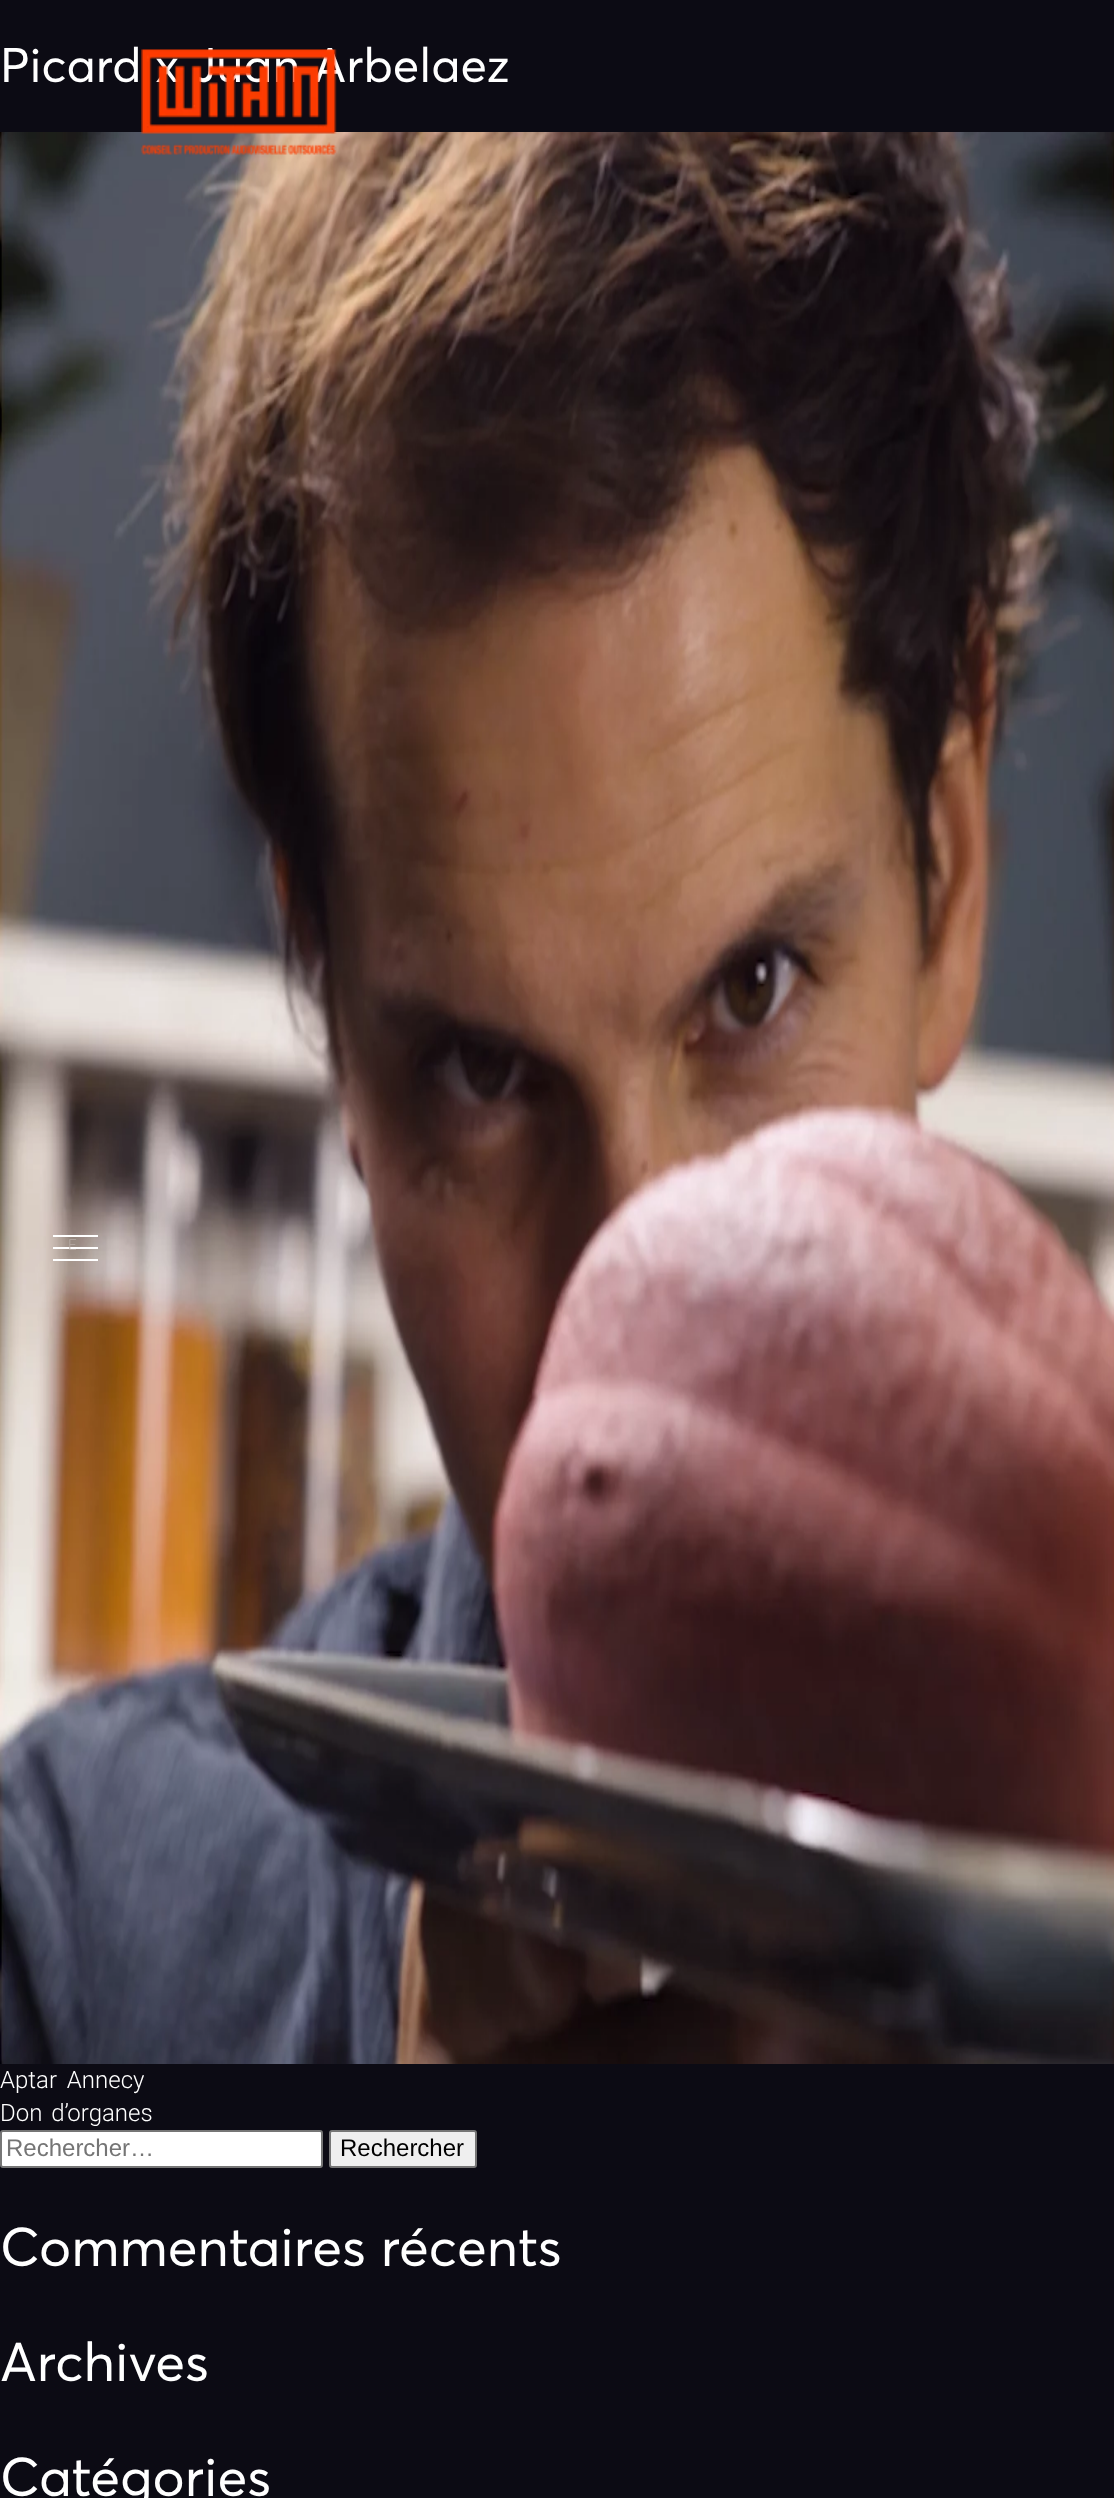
<svg xmlns="http://www.w3.org/2000/svg" width="1114" height="2498" viewBox="0 0 1114 2498">
  <rect width="100%" height="100%" fill="rgb(12,11,20)"/>
  <text x="0" y="82" font-family="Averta" font-size="48" fill="rgb(255,255,255)">Picard x Juan Arbelaez</text>
  <image x="0" y="132" width="1114" height="1932" href="pic1.png"/>
  <g font-family="Roboto" font-size="24" font-weight="300" fill="rgb(255,255,255)">
    <text>
      <tspan x="0" y="2088" word-spacing="4">Aptar Annecy</tspan>
      <tspan x="0" y="2121" word-spacing="3">Don d’organes</tspan>
    </text>
  </g>
  <rect x="1" y="2131" width="321" height="36" rx="2" fill="rgb(255,255,255)" stroke="rgb(118,118,118)" stroke-width="2"/>
  <text x="6" y="2156" font-family="Liberation Sans" font-size="24" fill="rgb(117,117,117)">Rechercher…</text>
  <rect x="330" y="2131" width="146" height="36" rx="2" fill="rgb(239,239,239)" stroke="rgb(118,118,118)" stroke-width="2"/>
  <text x="340" y="2156" font-family="Liberation Sans" font-size="24" fill="rgb(0,0,0)">Rechercher</text>
  <g font-family="Averta" font-size="54" fill="rgb(255,255,255)">
    <text x="0" y="2266">Commentaires récents</text>
    <text x="0" y="2381">Archives</text>
    <text x="0" y="2496">Catégories</text>
  </g>
  <image x="141" y="49" width="196" height="106" href="pic2.png"/>
  <rect x="53" y="1235" width="45" height="2" fill="rgb(255,255,255)"/>
  <rect x="53" y="1247" width="45" height="2" fill="rgb(255,255,255)"/>
  <text x="68" y="1250" font-family="Roboto" font-size="15" font-weight="300" letter-spacing="3" fill="rgb(183,172,166)">E</text>
  <rect x="53" y="1259" width="45" height="2" fill="rgb(255,255,255)"/>
</svg>
